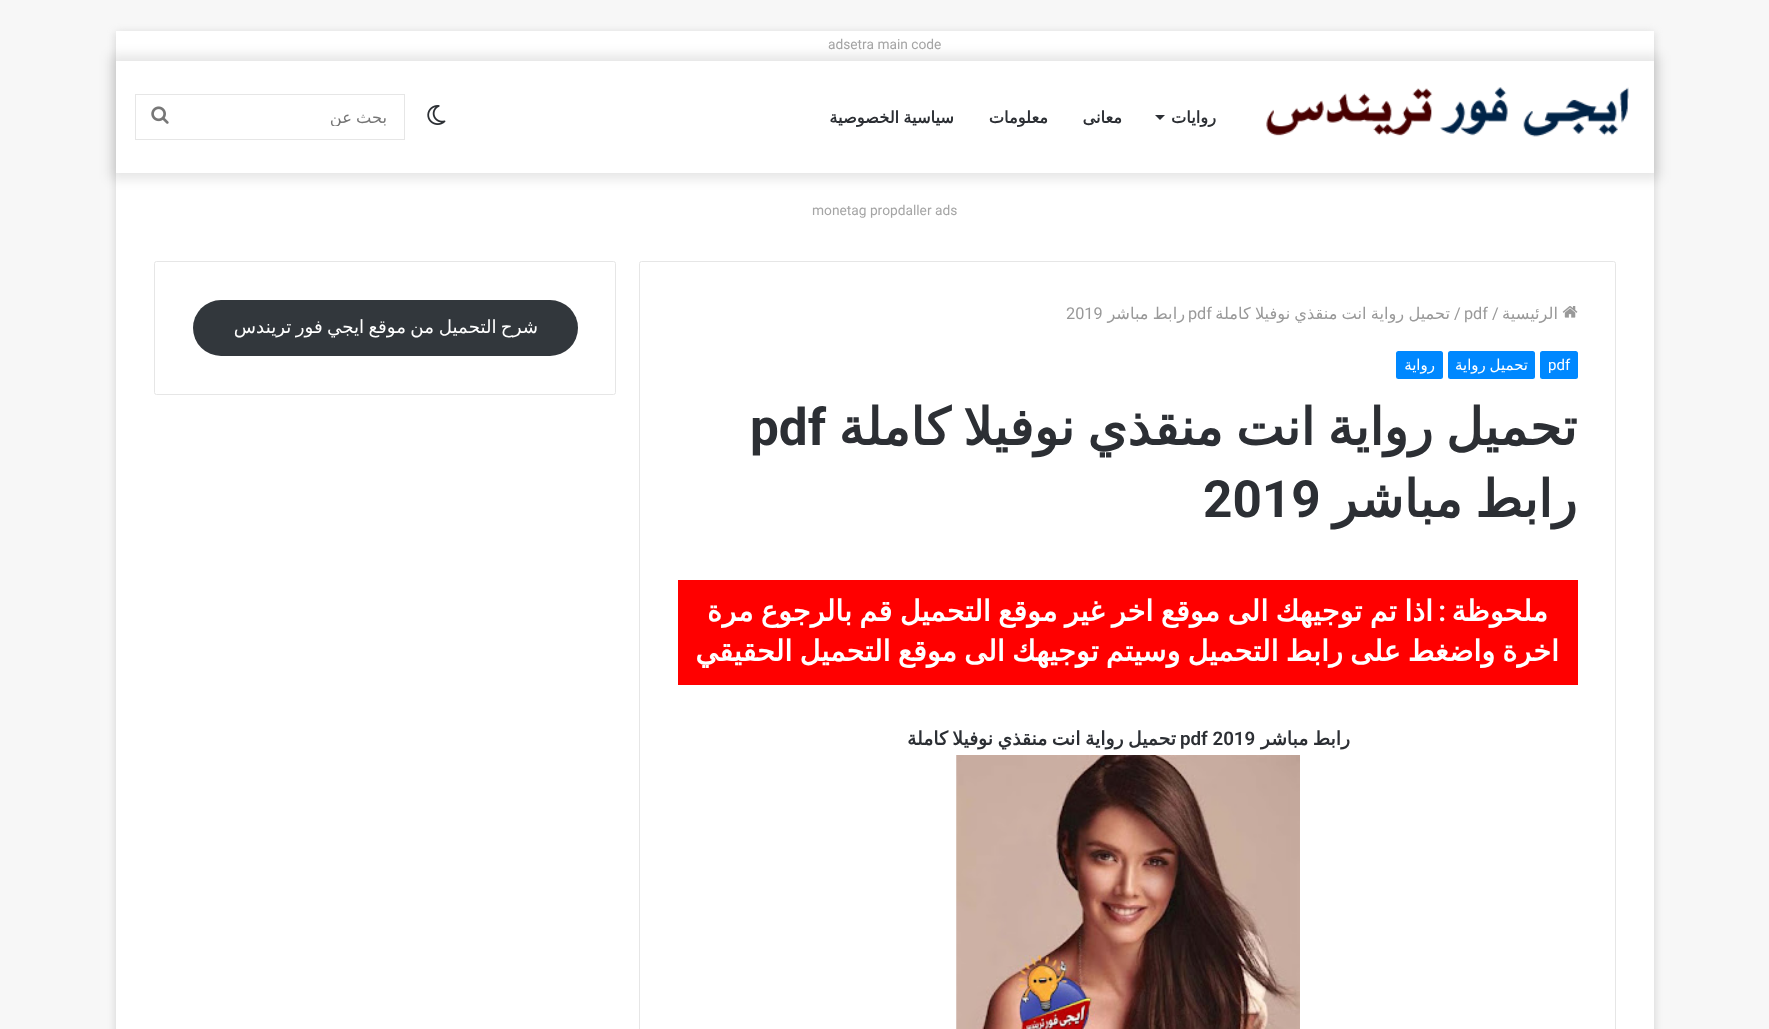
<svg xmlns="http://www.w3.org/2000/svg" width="1769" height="1029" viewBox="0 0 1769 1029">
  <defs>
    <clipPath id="clip1"><rect x="180" y="108" width="208" height="18"/></clipPath>
  </defs>
  <rect width="100%" height="100%" fill="rgb(247,247,247)"/>
  <rect x="116" y="33" width="1538" height="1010" fill="rgba(171,171,171,0.5)" filter="blur(4.5px)"/>
  <rect x="116" y="31" width="1538" height="998" fill="rgb(255,255,255)"/>
  <text x="828" y="49" font-family="Roboto" font-size="13.75" fill="rgb(165,165,165)">adsetra main code</text>
  <rect x="110" y="55" width="1550" height="124" fill="rgba(0,0,0,0.1)" filter="blur(6px)"/>
  <rect x="116" y="61" width="1538" height="112" fill="rgb(255,255,255)"/>
  <image x="1266" y="87" width="363" height="50" href="pic1.png"/>
  <text x="1216" y="123" font-family="DejaVu Sans" font-size="16.25" font-weight="bold" direction="rtl" fill="rgb(44,47,52)">روايات</text>
  <path d="M1155 115H1165L1160 120Z" fill="rgb(44,47,52)"/>
  <g font-family="DejaVu Sans" font-size="16.25" font-weight="bold" direction="rtl" fill="rgb(44,47,52)">
    <text x="1122" y="123">معانى</text>
    <text x="1048" y="123">معلومات</text>
    <text x="954" y="123" word-spacing="-1">سياسية الخصوصية</text>
  </g>
  <image x="427" y="105" width="19" height="20" href="pic2.png"/>
  <rect x="135.5" y="94.5" width="269" height="45" fill="none" stroke="rgb(230,230,230)"/>
  <g clip-path="url(#clip1)">
    <text x="387" y="123" word-spacing="-1" font-family="DejaVu Sans" font-size="16.25" direction="rtl" fill="rgb(117,117,117)">بحث عن</text>
  </g>
  <image x="151" y="106" width="18" height="18" href="pic3.png"/>
  <text x="812" y="215" font-family="Roboto" font-size="13.75" fill="rgb(165,165,165)">monetag propdaller ads</text>
  <rect x="639.5" y="261.5" width="976" height="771" rx="2" fill="none" stroke="rgb(230,230,230)"/>
  <image x="1562" y="306" width="16" height="12" href="pic4.png"/>
  <text x="1558" y="319" font-family="DejaVu Sans" font-size="16.25" direction="rtl" fill="rgb(153,153,153)">الرئيسية</text>
  <g font-family="Roboto" font-size="16.25" fill="rgb(153,153,153)">
    <text x="1492" y="319">/</text>
    <text x="1464" y="319">pdf</text>
    <text x="1454" y="319">/</text>
  </g>
  <text x="1450" y="319" word-spacing="-1" font-family="DejaVu Sans" font-size="16.25" direction="rtl" fill="rgb(153,153,153)">تحميل رواية انت منقذي نوفيلا كاملة</text>
  <text x="1188" y="319" font-family="Roboto" font-size="16.25" fill="rgb(153,153,153)">pdf</text>
  <text x="1185" y="319" word-spacing="-1" font-family="DejaVu Sans" font-size="16.25" direction="rtl" fill="rgb(153,153,153)">رابط مباشر</text>
  <text x="1066" y="319" font-family="Roboto" font-size="16.25" fill="rgb(153,153,153)">2019</text>
  <rect x="1540" y="351" width="38" height="28" rx="2.5" fill="rgb(0,136,255)"/>
  <text x="1548" y="370" font-family="Roboto" font-size="15" fill="rgb(255,255,255)">pdf</text>
  <rect x="1448" y="351" width="87" height="28" rx="2.5" fill="rgb(0,136,255)"/>
  <text x="1528" y="370" word-spacing="-1" font-family="DejaVu Sans" font-size="15" direction="rtl" fill="rgb(255,255,255)">تحميل رواية</text>
  <rect x="1396" y="351" width="47" height="28" rx="2.5" fill="rgb(0,136,255)"/>
  <text x="1435" y="370" font-family="DejaVu Sans" font-size="15" direction="rtl" fill="rgb(255,255,255)">رواية</text>
  <text x="1577" y="445" word-spacing="-3.5" font-family="DejaVu Sans" font-size="51.25" font-weight="bold" direction="rtl" fill="rgb(44,47,52)">تحميل رواية انت منقذي نوفيلا كاملة</text>
  <text x="750" y="445" font-family="Roboto" font-size="51.25" font-weight="bold" fill="rgb(44,47,52)">pdf</text>
  <text x="1577" y="517" word-spacing="-3.5" font-family="DejaVu Sans" font-size="51.25" font-weight="bold" direction="rtl" fill="rgb(44,47,52)">رابط مباشر</text>
  <text x="1203" y="517" font-family="Roboto" font-size="51.25" font-weight="bold" fill="rgb(44,47,52)">2019</text>
  <rect x="678" y="580" width="900" height="105" fill="rgb(255,0,0)"/>
  <g font-family="DejaVu Sans" font-size="28.75" font-weight="bold" direction="rtl" fill="rgb(255,255,255)">
    <text x="1548" y="621">ملحوظة</text>
    <text x="1433" y="621" word-spacing="-1.75">اذا تم توجيهك الى موقع اخر غير موقع التحميل قم بالرجوع مرة</text>
  </g>
  <text x="1446" y="621" font-family="Roboto" font-size="28.75" font-weight="600" direction="rtl" fill="rgb(255,255,255)">:</text>
  <text x="1559" y="661" word-spacing="-2" font-family="DejaVu Sans" font-size="28.75" font-weight="bold" direction="rtl" fill="rgb(255,255,255)">اخرة واضغط على رابط التحميل وسيتم توجيهك الى موقع التحميل الحقيقي</text>
  <g font-family="DejaVu Sans" font-size="18.75" font-weight="bold" direction="rtl" fill="rgb(44,47,52)">
    <text x="1350" y="745" word-spacing="-1.5">رابط مباشر</text>
    <text x="1176" y="745" word-spacing="-1.5">تحميل رواية انت منقذي نوفيلا كاملة</text>
  </g>
  <text x="1180" y="745" font-family="Roboto" font-size="18.75" font-weight="600" fill="rgb(44,47,52)">pdf 2019</text>
  <image x="956" y="755" width="344" height="274" href="pic5.png"/>
  <rect x="154.5" y="261.5" width="461" height="133" rx="2" fill="none" stroke="rgb(230,230,230)"/>
  <rect x="193" y="300" width="385" height="56" rx="28" fill="rgb(50,55,60)"/>
  <g font-family="DejaVu Sans" font-size="18.25" direction="rtl" fill="rgb(255,255,255)">
    <text x="538" y="333" word-spacing="-1.5">شرح التحميل</text>
    <text x="434" y="333" word-spacing="-1.5">من موقع ايجي فور تريندس</text>
  </g>
</svg>
